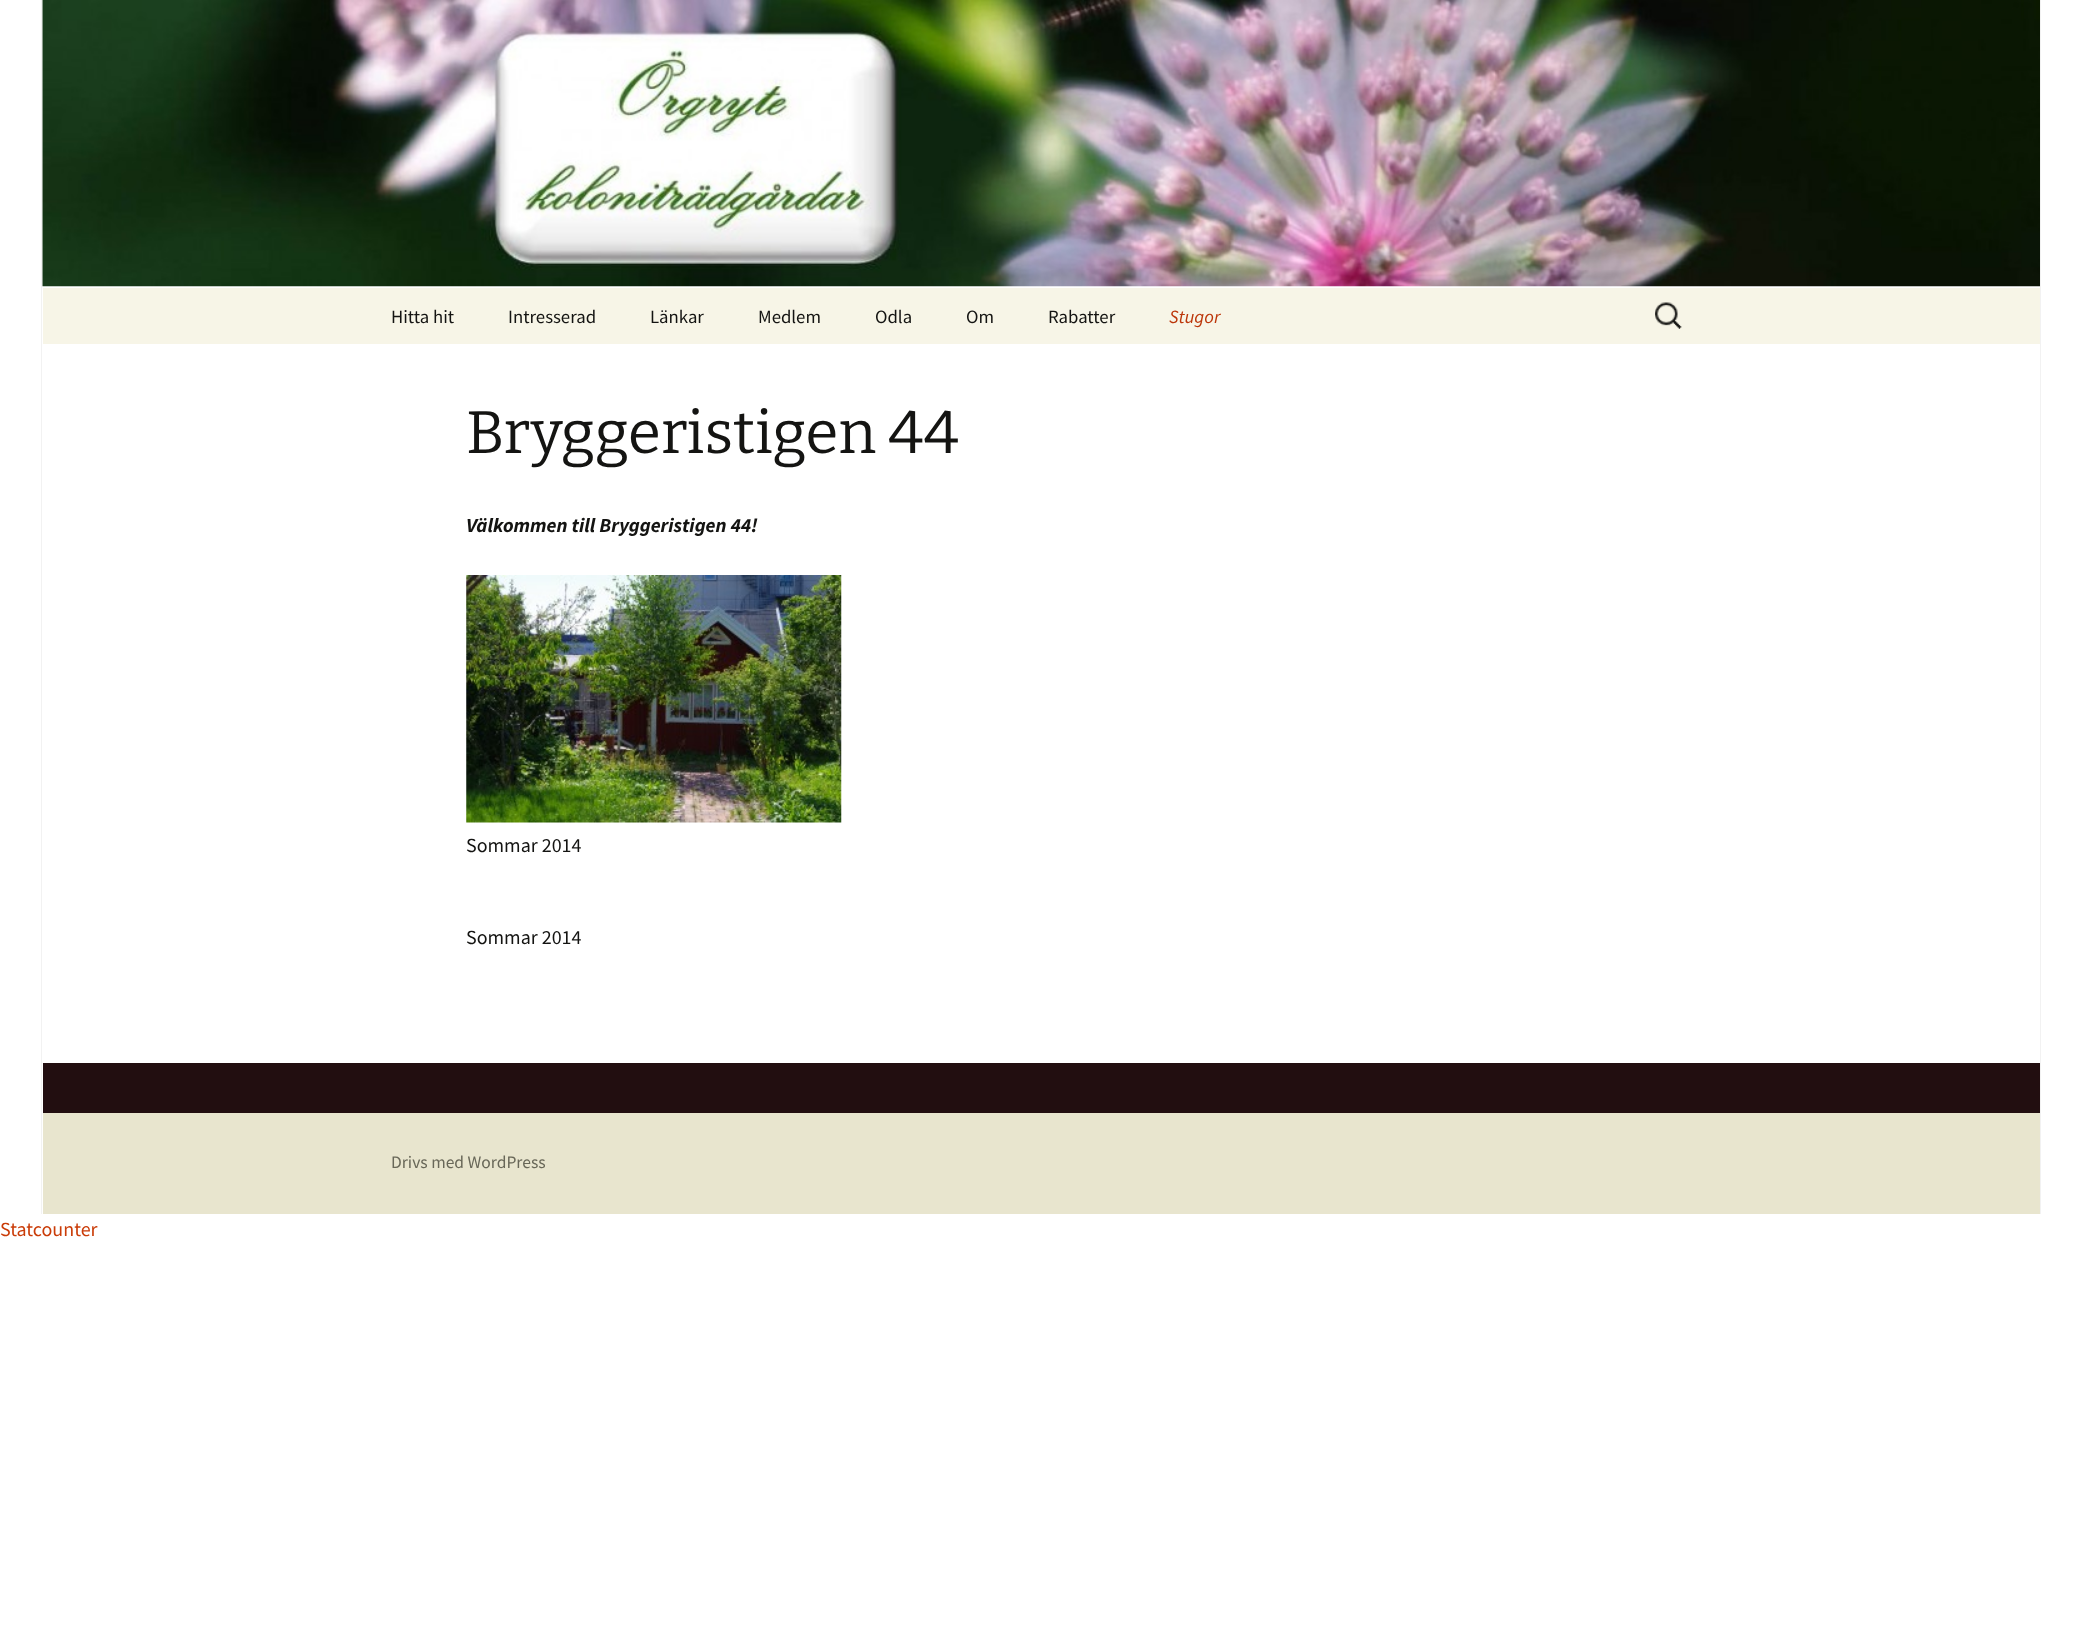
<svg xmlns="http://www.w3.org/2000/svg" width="2081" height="1643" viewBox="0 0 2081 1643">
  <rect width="100%" height="100%" fill="rgb(255,255,255)"/>
  <rect x="2040" y="0" width="1" height="1214" fill="rgb(242,242,242)"/>
  <rect x="41" y="0" width="1" height="1214" fill="rgb(242,242,242)"/>
  <image x="42" y="0" width="1998" height="287" href="pic1.png"/>
  <rect x="43" y="288" width="1997" height="56" fill="rgb(247,245,231)"/>
  <g font-family="Source Sans Pro" font-size="18.75" fill="rgb(20,20,18)">
    <text x="391" y="323">Hitta hit</text>
    <text x="508" y="323">Intresserad</text>
    <text x="650" y="323">Länkar</text>
    <text x="758" y="323">Medlem</text>
    <text x="875" y="323">Odla</text>
    <text x="966" y="323">Om</text>
    <text x="1048" y="323">Rabatter</text>
  </g>
  <text x="1169" y="323" font-family="Source Sans Pro" font-size="18.75" font-style="italic" fill="rgb(188,54,10)">Stugor</text>
  <image x="1655" y="302" width="27" height="27" href="pic2.png"/>
  <text x="466" y="453" font-family="Bitter" font-size="60" fill="rgb(20,20,18)">Bryggeristigen 44</text>
  <text x="466" y="532" font-family="Source Sans Pro" font-size="20" font-weight="bold" font-style="italic" fill="rgb(20,20,18)">Välkommen till Bryggeristigen 44!</text>
  <image x="466" y="575" width="376" height="248" href="pic3.png"/>
  <g font-family="Source Sans Pro" font-size="20" fill="rgb(20,20,18)">
    <text x="466" y="852">Sommar 2014</text>
    <text x="466" y="944">Sommar 2014</text>
  </g>
  <rect x="43" y="1113" width="1997" height="101" fill="rgb(232,229,206)"/>
  <rect x="43" y="1063" width="1997" height="50" fill="rgb(34,14,16)"/>
  <text x="391" y="1168" font-family="Source Sans Pro" font-size="17.5" fill="rgb(104,103,88)">Drivs med WordPress</text>
  <text x="0" y="1236" font-family="Source Sans Pro" font-size="20" fill="rgb(202,60,8)">Statcounter</text>
</svg>
